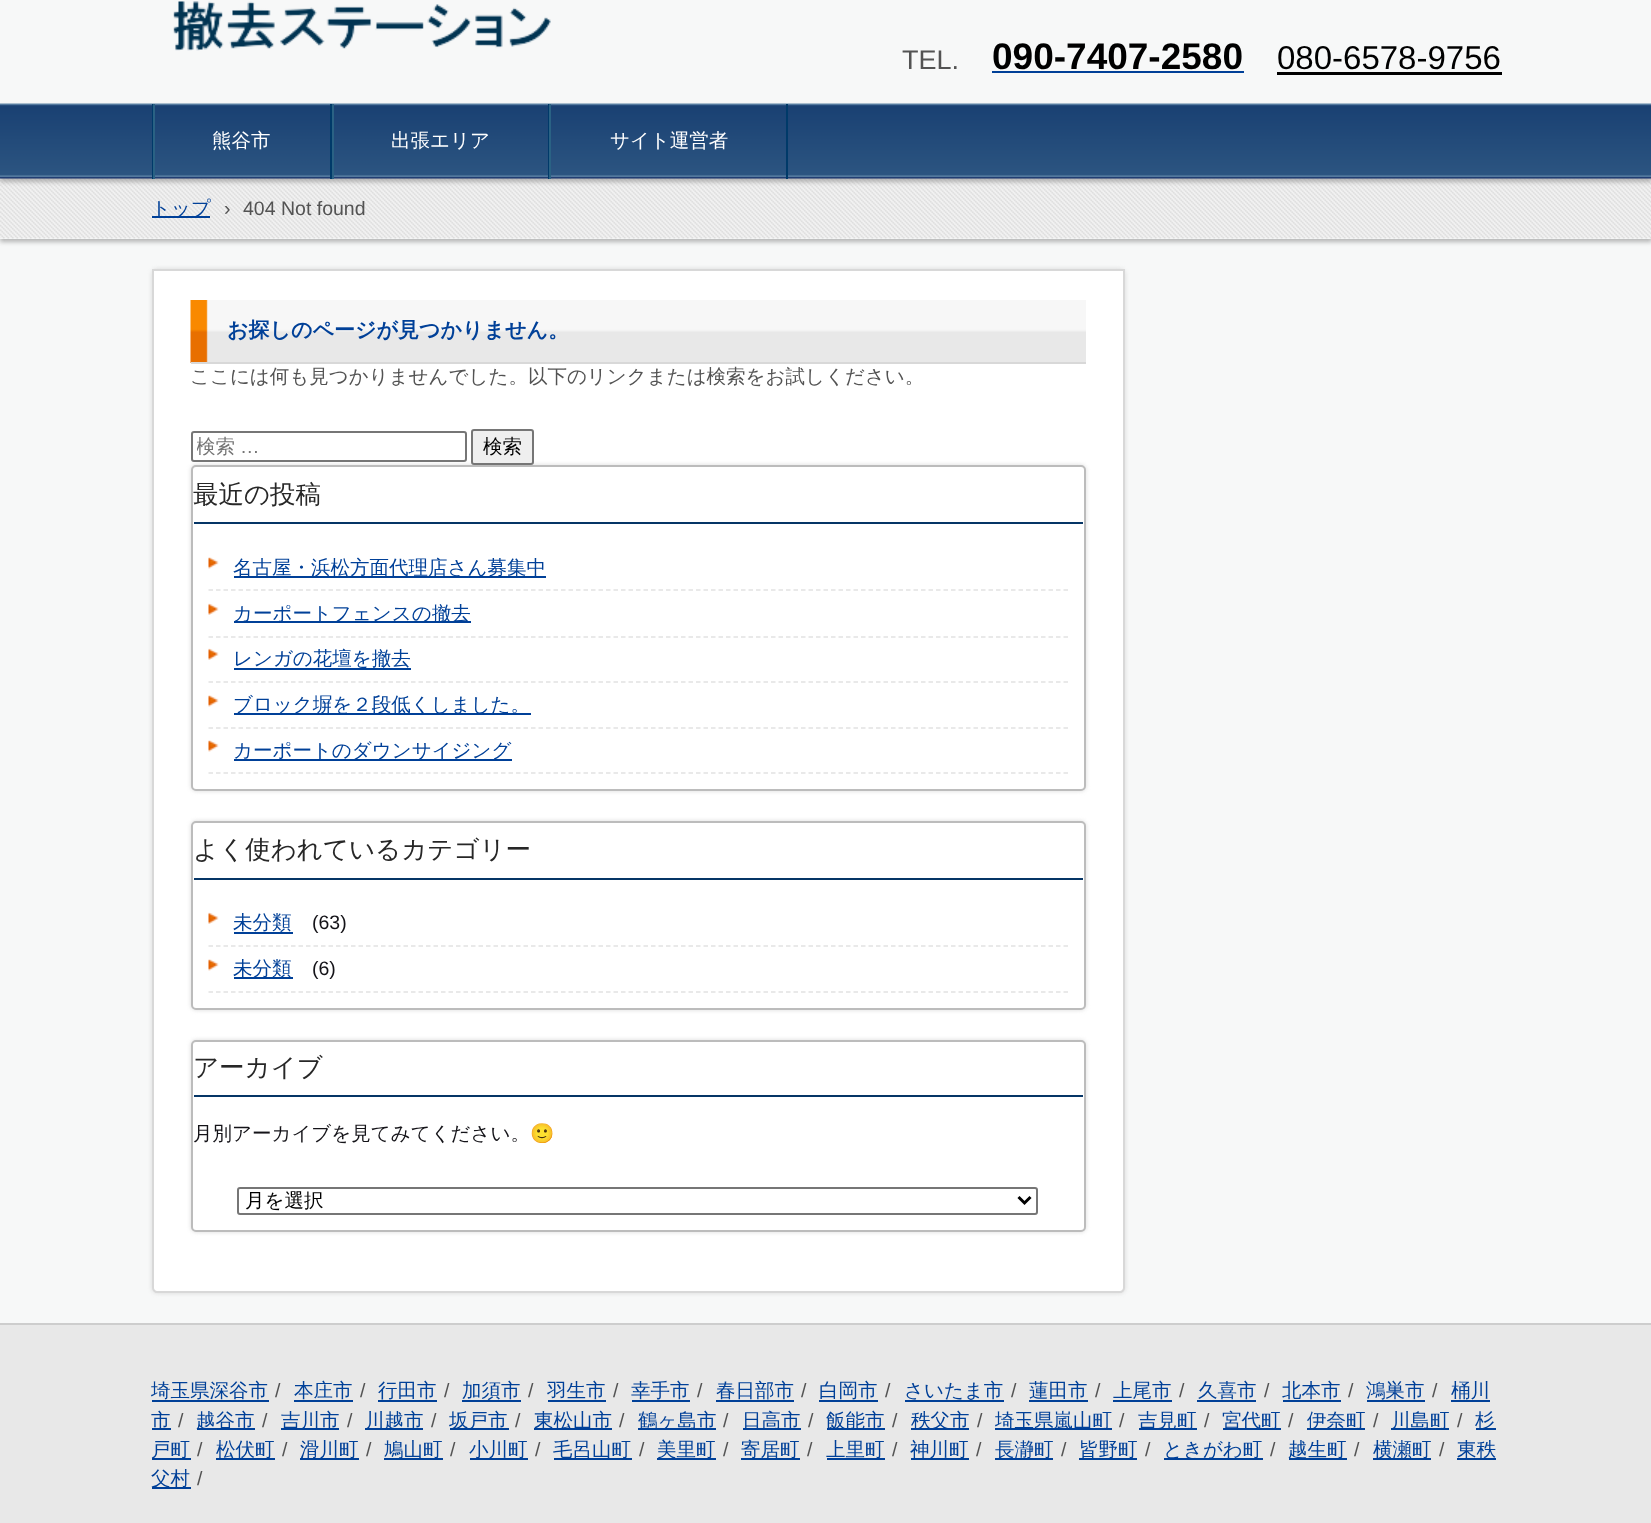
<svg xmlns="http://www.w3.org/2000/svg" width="1651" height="1523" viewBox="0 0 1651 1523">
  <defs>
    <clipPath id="clip1"><path d="M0 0H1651V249H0ZM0-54H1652V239H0Z" clip-rule="evenodd"/></clipPath>
    <clipPath id="clip2"><rect x="197" y="434" width="258" height="25"/></clipPath>
  </defs>
  <rect width="100%" height="100%" fill="rgb(247,248,248)"/>
  <g clip-path="url(#clip1)">
    <rect x="0" y="-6" width="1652" height="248" fill="rgba(160,160,160,0.75)" filter="blur(2px)"/>
  </g>
  <image x="0" y="178" width="1651" height="61" href="pic1.png"/>
  <image x="173" y="1" width="378" height="50" href="pic2.png"/>
  <text x="902" y="69" font-family="Liberation Sans" font-size="27" fill="rgb(83,83,83)">TEL.</text>
  <text x="992" y="69" font-family="Liberation Sans" font-size="37" font-weight="bold" fill="rgb(0,0,0)">090-7407-2580</text>
  <rect x="992" y="71" width="252" height="2" fill="rgb(0,64,152)"/>
  <text x="1277" y="69" font-family="Liberation Sans" font-size="33" fill="rgb(0,0,0)">080-6578-9756</text>
  <rect x="1277" y="72" width="225" height="3" fill="rgb(0,0,0)"/>
  <rect x="0" y="107" width="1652" height="75" fill="rgba(160,160,160,0.75)" filter="blur(2px)"/>
  <image x="0" y="103" width="1651" height="76" href="pic3.png"/>
  <rect x="152" y="104" width="1" height="75" fill="rgb(0,58,105)"/>
  <rect x="330" y="104" width="2" height="75" fill="rgb(0,58,105)"/>
  <rect x="153" y="104" width="2" height="75" fill="rgb(42,98,132)"/>
  <text x="212" y="147" font-family="WenQuanYi Zen Hei" font-size="19.5" font-weight="500" fill="rgb(255,255,255)">熊谷市</text>
  <rect x="548" y="104" width="1" height="75" fill="rgb(0,58,105)"/>
  <rect x="332" y="104" width="2" height="75" fill="rgb(42,98,132)"/>
  <text x="391" y="147" font-family="WenQuanYi Zen Hei" font-size="19.5" font-weight="500" fill="rgb(255,255,255)">出張エリア</text>
  <rect x="786" y="104" width="2" height="75" fill="rgb(0,58,105)"/>
  <rect x="549" y="104" width="2" height="75" fill="rgb(42,98,132)"/>
  <text x="610" y="147" font-family="WenQuanYi Zen Hei" font-size="19.5" font-weight="500" fill="rgb(255,255,255)">サイト運営者</text>
  <rect x="152" y="216" width="58" height="2" fill="rgb(0,64,152)"/>
  <text x="151" y="215" font-family="WenQuanYi Zen Hei" font-size="19.5" font-weight="500" fill="rgb(0,64,152)">トップ</text>
  <g font-family="Liberation Sans" font-size="19.5" fill="rgb(83,83,83)">
    <text x="224" y="215">›</text>
    <text x="243" y="215">404 Not found</text>
  </g>
  <rect x="152" y="269" width="973" height="1024" rx="5" fill="rgba(205,205,205,0.75)" filter="blur(2px)"/>
  <path d="M153 270H1124V1288C1124 1290 1122 1292 1120 1292H157C155 1292 153 1290 153 1288Z" fill="rgb(255,255,255)" stroke="rgb(216,216,216)" stroke-width="2"/>
  <image x="190" y="300" width="896" height="63" href="pic4.png"/>
  <rect x="191" y="362" width="895" height="2" fill="rgb(216,216,216)"/>
  <text x="227" y="337" font-family="WenQuanYi Zen Hei" font-size="21" font-weight="bold" fill="rgb(0,64,152)">お探しのページが見つかりません。</text>
  <text x="190" y="383" font-family="WenQuanYi Zen Hei" font-size="19.5" font-weight="500" fill="rgb(83,83,83)">ここには何も見つかりませんでした。以下のリンクまたは検索をお試しください。</text>
  <rect x="191" y="465" width="895" height="326" rx="5" fill="rgba(205,205,205,0.75)" filter="blur(2px)"/>
  <rect x="192" y="432" width="274" height="29" rx="2" fill="none" stroke="rgb(118,118,118)" stroke-width="2"/>
  <g clip-path="url(#clip2)">
    <text x="196" y="453" font-family="WenQuanYi Zen Hei" font-size="19.5" font-weight="500" fill="rgb(117,117,117)">検索</text>
  </g>
  <text x="240" y="453" font-family="Liberation Sans" font-size="19.5" fill="rgb(117,117,117)">…</text>
  <rect x="472" y="430" width="61" height="34" rx="2" fill="rgb(239,239,239)" stroke="rgb(118,118,118)" stroke-width="2"/>
  <text x="483" y="453" font-family="WenQuanYi Zen Hei" font-size="19.5" font-weight="500" fill="rgb(0,0,0)">検索</text>
  <rect x="192" y="466" width="893" height="324" rx="4" fill="rgb(255,255,255)" stroke="rgb(188,188,188)" stroke-width="2"/>
  <rect x="194" y="522" width="889" height="2" fill="rgb(5,53,102)"/>
  <text x="193" y="503" font-family="WenQuanYi Zen Hei" font-size="25.5" font-weight="500" fill="rgb(39,39,39)">最近の投稿</text>
  <image x="208" y="557" width="11" height="12" href="pic5.png"/>
  <rect x="234" y="576" width="312" height="2" fill="rgb(0,64,152)"/>
  <text x="233" y="574" font-family="WenQuanYi Zen Hei" font-size="19.5" font-weight="500" fill="rgb(0,64,152)">名古屋・浜松方面代理店さん募集中</text>
  <path d="M208.5 590H1068" fill="none" stroke="rgb(226,226,226)" stroke-width="1.5" stroke-dasharray="4.5 3"/>
  <image x="208" y="603" width="11" height="12" href="pic6.png"/>
  <rect x="234" y="621" width="237" height="2" fill="rgb(0,64,152)"/>
  <text x="233" y="620" font-family="WenQuanYi Zen Hei" font-size="19.5" font-weight="500" fill="rgb(0,64,152)">カーポートフェンスの撤去</text>
  <path d="M208.5 637H1068" fill="none" stroke="rgb(226,226,226)" stroke-width="1.5" stroke-dasharray="4.5 3"/>
  <image x="208" y="648" width="11" height="12" href="pic6.png"/>
  <rect x="234" y="668" width="177" height="2" fill="rgb(0,64,152)"/>
  <text x="233" y="665" font-family="WenQuanYi Zen Hei" font-size="19.5" font-weight="500" fill="rgb(0,64,152)">レンガの花壇を撤去</text>
  <path d="M208.5 682H1068" fill="none" stroke="rgb(226,226,226)" stroke-width="1.5" stroke-dasharray="4.5 3"/>
  <image x="208" y="695" width="11" height="12" href="pic5.png"/>
  <rect x="234" y="713" width="297" height="2" fill="rgb(0,64,152)"/>
  <text x="233" y="711" font-family="WenQuanYi Zen Hei" font-size="19.5" font-weight="500" fill="rgb(0,64,152)">ブロック塀を２段低くしました。</text>
  <path d="M208.5 728H1068" fill="none" stroke="rgb(226,226,226)" stroke-width="1.5" stroke-dasharray="4.5 3"/>
  <path d="M208.5 773H1068" fill="none" stroke="rgb(226,226,226)" stroke-width="1.5" stroke-dasharray="4.5 3"/>
  <image x="208" y="740" width="11" height="12" href="pic5.png"/>
  <rect x="234" y="759" width="278" height="2" fill="rgb(0,64,152)"/>
  <text x="233" y="757" font-family="WenQuanYi Zen Hei" font-size="19.5" font-weight="500" fill="rgb(0,64,152)">カーポートのダウンサイジング</text>
  <rect x="191" y="821" width="895" height="189" rx="5" fill="rgba(205,205,205,0.75)" filter="blur(2px)"/>
  <rect x="192" y="822" width="893" height="187" rx="4" fill="rgb(255,255,255)" stroke="rgb(188,188,188)" stroke-width="2"/>
  <rect x="194" y="878" width="889" height="2" fill="rgb(5,53,102)"/>
  <text x="193" y="858" font-family="WenQuanYi Zen Hei" font-size="25.5" font-weight="500" fill="rgb(39,39,39)">よく使われているカテゴリー</text>
  <image x="208" y="912" width="11" height="12" href="pic6.png"/>
  <rect x="234" y="932" width="59" height="2" fill="rgb(0,64,152)"/>
  <text x="233" y="929" font-family="WenQuanYi Zen Hei" font-size="19.5" font-weight="500" fill="rgb(0,64,152)">未分類</text>
  <text x="312" y="929" font-family="Liberation Sans" font-size="19.5" fill="rgb(20,19,24)">(63)</text>
  <path d="M208.5 946H1068" fill="none" stroke="rgb(226,226,226)" stroke-width="1.5" stroke-dasharray="4.5 3"/>
  <path d="M208.5 992H1068" fill="none" stroke="rgb(226,226,226)" stroke-width="1.5" stroke-dasharray="4.5 3"/>
  <image x="208" y="959" width="11" height="12" href="pic5.png"/>
  <rect x="234" y="977" width="59" height="2" fill="rgb(0,64,152)"/>
  <text x="233" y="975" font-family="WenQuanYi Zen Hei" font-size="19.5" font-weight="500" fill="rgb(0,64,152)">未分類</text>
  <text x="312" y="975" font-family="Liberation Sans" font-size="19.5" fill="rgb(20,19,24)">(6)</text>
  <rect x="191" y="1040" width="895" height="192" rx="5" fill="rgba(205,205,205,0.75)" filter="blur(2px)"/>
  <rect x="192" y="1041" width="893" height="190" rx="4" fill="rgb(255,255,255)" stroke="rgb(188,188,188)" stroke-width="2"/>
  <rect x="194" y="1095" width="889" height="2" fill="rgb(5,53,102)"/>
  <text x="193" y="1076" font-family="WenQuanYi Zen Hei" font-size="25.5" font-weight="500" fill="rgb(39,39,39)">アーカイブ</text>
  <text x="193" y="1140" font-family="WenQuanYi Zen Hei" font-size="19.5" font-weight="500" fill="rgb(20,19,24)">月別アーカイブを見てみてください。</text>
  <text x="530" y="1140" font-family="Noto Color Emoji" font-size="19.5" fill="rgb(20,19,24)">🙂</text>
  <rect x="238" y="1188" width="799" height="26" rx="2" fill="none" stroke="rgb(118,118,118)" stroke-width="2"/>
  <path d="M1018.5 1197L1024.5 1203L1030.5 1197" fill="none" stroke="rgb(0,0,0)" stroke-width="3"/>
  <text x="245" y="1207" font-family="WenQuanYi Zen Hei" font-size="19.5" font-weight="500" fill="rgb(0,0,0)">月を選択</text>
  <rect x="0" y="1325" width="1651" height="198" fill="rgb(232,232,232)"/>
  <rect x="0" y="1323" width="1651" height="2" fill="rgb(205,205,205)"/>
  <text x="151" y="1397" font-family="WenQuanYi Zen Hei" font-size="19.5" font-weight="500" fill="rgb(0,64,152)">埼玉県深谷市</text>
  <rect x="152" y="1400" width="117" height="2" fill="rgb(0,64,152)"/>
  <text x="275" y="1397" font-family="Liberation Sans" font-size="19.5" fill="rgb(83,83,83)">/</text>
  <text x="294" y="1397" font-family="WenQuanYi Zen Hei" font-size="19.5" font-weight="500" fill="rgb(0,64,152)">本庄市</text>
  <rect x="294" y="1400" width="59" height="2" fill="rgb(0,64,152)"/>
  <text x="360" y="1397" font-family="Liberation Sans" font-size="19.5" fill="rgb(83,83,83)">/</text>
  <text x="378" y="1397" font-family="WenQuanYi Zen Hei" font-size="19.5" font-weight="500" fill="rgb(0,64,152)">行田市</text>
  <rect x="378" y="1400" width="59" height="2" fill="rgb(0,64,152)"/>
  <text x="444" y="1397" font-family="Liberation Sans" font-size="19.5" fill="rgb(83,83,83)">/</text>
  <rect x="462" y="1400" width="59" height="2" fill="rgb(0,64,152)"/>
  <text x="462" y="1397" font-family="WenQuanYi Zen Hei" font-size="19.5" font-weight="500" fill="rgb(0,64,152)">加須市</text>
  <text x="528" y="1397" font-family="Liberation Sans" font-size="19.5" fill="rgb(83,83,83)">/</text>
  <text x="547" y="1397" font-family="WenQuanYi Zen Hei" font-size="19.5" font-weight="500" fill="rgb(0,64,152)">羽生市</text>
  <rect x="548" y="1400" width="58" height="2" fill="rgb(0,64,152)"/>
  <text x="613" y="1397" font-family="Liberation Sans" font-size="19.5" fill="rgb(83,83,83)">/</text>
  <text x="631" y="1397" font-family="WenQuanYi Zen Hei" font-size="19.5" font-weight="500" fill="rgb(0,64,152)">幸手市</text>
  <rect x="632" y="1400" width="58" height="2" fill="rgb(0,64,152)"/>
  <text x="697" y="1397" font-family="Liberation Sans" font-size="19.5" fill="rgb(83,83,83)">/</text>
  <text x="716" y="1397" font-family="WenQuanYi Zen Hei" font-size="19.5" font-weight="500" fill="rgb(0,64,152)">春日部市</text>
  <rect x="716" y="1400" width="78" height="2" fill="rgb(0,64,152)"/>
  <text x="801" y="1397" font-family="Liberation Sans" font-size="19.5" fill="rgb(83,83,83)">/</text>
  <text x="819" y="1397" font-family="WenQuanYi Zen Hei" font-size="19.5" font-weight="500" fill="rgb(0,64,152)">白岡市</text>
  <rect x="819" y="1400" width="59" height="2" fill="rgb(0,64,152)"/>
  <text x="885" y="1397" font-family="Liberation Sans" font-size="19.5" fill="rgb(83,83,83)">/</text>
  <text x="904" y="1397" font-family="WenQuanYi Zen Hei" font-size="19.5" font-weight="500" fill="rgb(0,64,152)">さいたま市</text>
  <rect x="905" y="1400" width="99" height="2" fill="rgb(0,64,152)"/>
  <text x="1011" y="1397" font-family="Liberation Sans" font-size="19.5" fill="rgb(83,83,83)">/</text>
  <text x="1029" y="1397" font-family="WenQuanYi Zen Hei" font-size="19.5" font-weight="500" fill="rgb(0,64,152)">蓮田市</text>
  <rect x="1029" y="1400" width="59" height="2" fill="rgb(0,64,152)"/>
  <text x="1095" y="1397" font-family="Liberation Sans" font-size="19.5" fill="rgb(83,83,83)">/</text>
  <text x="1113" y="1397" font-family="WenQuanYi Zen Hei" font-size="19.5" font-weight="500" fill="rgb(0,64,152)">上尾市</text>
  <rect x="1113" y="1400" width="59" height="2" fill="rgb(0,64,152)"/>
  <text x="1179" y="1397" font-family="Liberation Sans" font-size="19.5" fill="rgb(83,83,83)">/</text>
  <text x="1198" y="1397" font-family="WenQuanYi Zen Hei" font-size="19.5" font-weight="500" fill="rgb(0,64,152)">久喜市</text>
  <rect x="1197" y="1400" width="59" height="2" fill="rgb(0,64,152)"/>
  <text x="1264" y="1397" font-family="Liberation Sans" font-size="19.5" fill="rgb(83,83,83)">/</text>
  <text x="1282" y="1397" font-family="WenQuanYi Zen Hei" font-size="19.5" font-weight="500" fill="rgb(0,64,152)">北本市</text>
  <rect x="1283" y="1400" width="58" height="2" fill="rgb(0,64,152)"/>
  <text x="1348" y="1397" font-family="Liberation Sans" font-size="19.5" fill="rgb(83,83,83)">/</text>
  <text x="1366" y="1397" font-family="WenQuanYi Zen Hei" font-size="19.5" font-weight="500" fill="rgb(0,64,152)">鴻巣市</text>
  <rect x="1367" y="1400" width="58" height="2" fill="rgb(0,64,152)"/>
  <text x="1432" y="1397" font-family="Liberation Sans" font-size="19.5" fill="rgb(83,83,83)">/</text>
  <text x="1451" y="1397" font-family="WenQuanYi Zen Hei" font-size="19.5" font-weight="500" fill="rgb(0,64,152)">桶川</text>
  <rect x="1451" y="1400" width="39" height="2" fill="rgb(0,64,152)"/>
  <rect x="152" y="1428" width="19" height="2" fill="rgb(0,64,152)"/>
  <text x="151" y="1427" font-family="WenQuanYi Zen Hei" font-size="19.5" font-weight="500" fill="rgb(0,64,152)">市</text>
  <text x="178" y="1427" font-family="Liberation Sans" font-size="19.5" fill="rgb(83,83,83)">/</text>
  <rect x="197" y="1428" width="58" height="2" fill="rgb(0,64,152)"/>
  <text x="196" y="1427" font-family="WenQuanYi Zen Hei" font-size="19.5" font-weight="500" fill="rgb(0,64,152)">越谷市</text>
  <text x="262" y="1427" font-family="Liberation Sans" font-size="19.5" fill="rgb(83,83,83)">/</text>
  <rect x="281" y="1428" width="58" height="2" fill="rgb(0,64,152)"/>
  <text x="281" y="1427" font-family="WenQuanYi Zen Hei" font-size="19.5" font-weight="500" fill="rgb(0,64,152)">吉川市</text>
  <text x="347" y="1427" font-family="Liberation Sans" font-size="19.5" fill="rgb(83,83,83)">/</text>
  <rect x="365" y="1428" width="58" height="2" fill="rgb(0,64,152)"/>
  <text x="365" y="1427" font-family="WenQuanYi Zen Hei" font-size="19.5" font-weight="500" fill="rgb(0,64,152)">川越市</text>
  <text x="431" y="1427" font-family="Liberation Sans" font-size="19.5" fill="rgb(83,83,83)">/</text>
  <rect x="450" y="1428" width="59" height="2" fill="rgb(0,64,152)"/>
  <text x="449" y="1427" font-family="WenQuanYi Zen Hei" font-size="19.5" font-weight="500" fill="rgb(0,64,152)">坂戸市</text>
  <text x="515" y="1427" font-family="Liberation Sans" font-size="19.5" fill="rgb(83,83,83)">/</text>
  <rect x="534" y="1428" width="78" height="2" fill="rgb(0,64,152)"/>
  <text x="534" y="1427" font-family="WenQuanYi Zen Hei" font-size="19.5" font-weight="500" fill="rgb(0,64,152)">東松山市</text>
  <text x="619" y="1427" font-family="Liberation Sans" font-size="19.5" fill="rgb(83,83,83)">/</text>
  <rect x="638" y="1428" width="78" height="2" fill="rgb(0,64,152)"/>
  <text x="638" y="1427" font-family="WenQuanYi Zen Hei" font-size="19.5" font-weight="500" fill="rgb(0,64,152)">鶴ヶ島市</text>
  <text x="723" y="1427" font-family="Liberation Sans" font-size="19.5" fill="rgb(83,83,83)">/</text>
  <rect x="743" y="1428" width="58" height="2" fill="rgb(0,64,152)"/>
  <text x="742" y="1427" font-family="WenQuanYi Zen Hei" font-size="19.5" font-weight="500" fill="rgb(0,64,152)">日高市</text>
  <text x="808" y="1427" font-family="Liberation Sans" font-size="19.5" fill="rgb(83,83,83)">/</text>
  <rect x="827" y="1428" width="58" height="2" fill="rgb(0,64,152)"/>
  <text x="826" y="1427" font-family="WenQuanYi Zen Hei" font-size="19.5" font-weight="500" fill="rgb(0,64,152)">飯能市</text>
  <text x="892" y="1427" font-family="Liberation Sans" font-size="19.5" fill="rgb(83,83,83)">/</text>
  <rect x="911" y="1428" width="58" height="2" fill="rgb(0,64,152)"/>
  <text x="911" y="1427" font-family="WenQuanYi Zen Hei" font-size="19.5" font-weight="500" fill="rgb(0,64,152)">秩父市</text>
  <text x="977" y="1427" font-family="Liberation Sans" font-size="19.5" fill="rgb(83,83,83)">/</text>
  <rect x="995" y="1428" width="117" height="2" fill="rgb(0,64,152)"/>
  <text x="995" y="1427" font-family="WenQuanYi Zen Hei" font-size="19.5" font-weight="500" fill="rgb(0,64,152)">埼玉県嵐山町</text>
  <text x="1119" y="1427" font-family="Liberation Sans" font-size="19.5" fill="rgb(83,83,83)">/</text>
  <rect x="1139" y="1428" width="58" height="2" fill="rgb(0,64,152)"/>
  <text x="1138" y="1427" font-family="WenQuanYi Zen Hei" font-size="19.5" font-weight="500" fill="rgb(0,64,152)">吉見町</text>
  <text x="1204" y="1427" font-family="Liberation Sans" font-size="19.5" fill="rgb(83,83,83)">/</text>
  <rect x="1223" y="1428" width="58" height="2" fill="rgb(0,64,152)"/>
  <text x="1222" y="1427" font-family="WenQuanYi Zen Hei" font-size="19.5" font-weight="500" fill="rgb(0,64,152)">宮代町</text>
  <text x="1288" y="1427" font-family="Liberation Sans" font-size="19.5" fill="rgb(83,83,83)">/</text>
  <rect x="1307" y="1428" width="58" height="2" fill="rgb(0,64,152)"/>
  <text x="1307" y="1427" font-family="WenQuanYi Zen Hei" font-size="19.5" font-weight="500" fill="rgb(0,64,152)">伊奈町</text>
  <text x="1373" y="1427" font-family="Liberation Sans" font-size="19.5" fill="rgb(83,83,83)">/</text>
  <rect x="1391" y="1428" width="58" height="2" fill="rgb(0,64,152)"/>
  <text x="1391" y="1427" font-family="WenQuanYi Zen Hei" font-size="19.5" font-weight="500" fill="rgb(0,64,152)">川島町</text>
  <text x="1457" y="1427" font-family="Liberation Sans" font-size="19.5" fill="rgb(83,83,83)">/</text>
  <rect x="1476" y="1428" width="20" height="2" fill="rgb(0,64,152)"/>
  <text x="1475" y="1427" font-family="WenQuanYi Zen Hei" font-size="19.5" font-weight="500" fill="rgb(0,64,152)">杉</text>
  <rect x="152" y="1458" width="39" height="2" fill="rgb(0,64,152)"/>
  <text x="151" y="1456" font-family="WenQuanYi Zen Hei" font-size="19.5" font-weight="500" fill="rgb(0,64,152)">戸町</text>
  <text x="197" y="1456" font-family="Liberation Sans" font-size="19.5" fill="rgb(83,83,83)">/</text>
  <rect x="216" y="1458" width="59" height="2" fill="rgb(0,64,152)"/>
  <text x="216" y="1456" font-family="WenQuanYi Zen Hei" font-size="19.5" font-weight="500" fill="rgb(0,64,152)">松伏町</text>
  <text x="282" y="1456" font-family="Liberation Sans" font-size="19.5" fill="rgb(83,83,83)">/</text>
  <rect x="300" y="1458" width="59" height="2" fill="rgb(0,64,152)"/>
  <text x="300" y="1456" font-family="WenQuanYi Zen Hei" font-size="19.5" font-weight="500" fill="rgb(0,64,152)">滑川町</text>
  <text x="366" y="1456" font-family="Liberation Sans" font-size="19.5" fill="rgb(83,83,83)">/</text>
  <rect x="384" y="1458" width="59" height="2" fill="rgb(0,64,152)"/>
  <text x="384" y="1456" font-family="WenQuanYi Zen Hei" font-size="19.5" font-weight="500" fill="rgb(0,64,152)">鳩山町</text>
  <text x="450" y="1456" font-family="Liberation Sans" font-size="19.5" fill="rgb(83,83,83)">/</text>
  <rect x="470" y="1458" width="58" height="2" fill="rgb(0,64,152)"/>
  <text x="469" y="1456" font-family="WenQuanYi Zen Hei" font-size="19.5" font-weight="500" fill="rgb(0,64,152)">小川町</text>
  <text x="535" y="1456" font-family="Liberation Sans" font-size="19.5" fill="rgb(83,83,83)">/</text>
  <rect x="554" y="1458" width="78" height="2" fill="rgb(0,64,152)"/>
  <text x="553" y="1456" font-family="WenQuanYi Zen Hei" font-size="19.5" font-weight="500" fill="rgb(0,64,152)">毛呂山町</text>
  <text x="639" y="1456" font-family="Liberation Sans" font-size="19.5" fill="rgb(83,83,83)">/</text>
  <rect x="657" y="1458" width="59" height="2" fill="rgb(0,64,152)"/>
  <text x="657" y="1456" font-family="WenQuanYi Zen Hei" font-size="19.5" font-weight="500" fill="rgb(0,64,152)">美里町</text>
  <text x="723" y="1456" font-family="Liberation Sans" font-size="19.5" fill="rgb(83,83,83)">/</text>
  <rect x="741" y="1458" width="59" height="2" fill="rgb(0,64,152)"/>
  <text x="741" y="1456" font-family="WenQuanYi Zen Hei" font-size="19.5" font-weight="500" fill="rgb(0,64,152)">寄居町</text>
  <text x="807" y="1456" font-family="Liberation Sans" font-size="19.5" fill="rgb(83,83,83)">/</text>
  <rect x="827" y="1458" width="58" height="2" fill="rgb(0,64,152)"/>
  <text x="826" y="1456" font-family="WenQuanYi Zen Hei" font-size="19.5" font-weight="500" fill="rgb(0,64,152)">上里町</text>
  <text x="892" y="1456" font-family="Liberation Sans" font-size="19.5" fill="rgb(83,83,83)">/</text>
  <rect x="911" y="1458" width="58" height="2" fill="rgb(0,64,152)"/>
  <text x="910" y="1456" font-family="WenQuanYi Zen Hei" font-size="19.5" font-weight="500" fill="rgb(0,64,152)">神川町</text>
  <text x="976" y="1456" font-family="Liberation Sans" font-size="19.5" fill="rgb(83,83,83)">/</text>
  <rect x="995" y="1458" width="58" height="2" fill="rgb(0,64,152)"/>
  <text x="995" y="1456" font-family="WenQuanYi Zen Hei" font-size="19.5" font-weight="500" fill="rgb(0,64,152)">長瀞町</text>
  <text x="1061" y="1456" font-family="Liberation Sans" font-size="19.5" fill="rgb(83,83,83)">/</text>
  <rect x="1079" y="1458" width="58" height="2" fill="rgb(0,64,152)"/>
  <text x="1079" y="1456" font-family="WenQuanYi Zen Hei" font-size="19.5" font-weight="500" fill="rgb(0,64,152)">皆野町</text>
  <text x="1145" y="1456" font-family="Liberation Sans" font-size="19.5" fill="rgb(83,83,83)">/</text>
  <rect x="1164" y="1458" width="99" height="2" fill="rgb(0,64,152)"/>
  <text x="1163" y="1456" font-family="WenQuanYi Zen Hei" font-size="19.5" font-weight="500" fill="rgb(0,64,152)">ときがわ町</text>
  <text x="1270" y="1456" font-family="Liberation Sans" font-size="19.5" fill="rgb(83,83,83)">/</text>
  <rect x="1289" y="1458" width="58" height="2" fill="rgb(0,64,152)"/>
  <text x="1288" y="1456" font-family="WenQuanYi Zen Hei" font-size="19.5" font-weight="500" fill="rgb(0,64,152)">越生町</text>
  <text x="1354" y="1456" font-family="Liberation Sans" font-size="19.5" fill="rgb(83,83,83)">/</text>
  <rect x="1373" y="1458" width="58" height="2" fill="rgb(0,64,152)"/>
  <text x="1373" y="1456" font-family="WenQuanYi Zen Hei" font-size="19.5" font-weight="500" fill="rgb(0,64,152)">横瀬町</text>
  <text x="1439" y="1456" font-family="Liberation Sans" font-size="19.5" fill="rgb(83,83,83)">/</text>
  <rect x="1457" y="1458" width="39" height="2" fill="rgb(0,64,152)"/>
  <text x="1457" y="1456" font-family="WenQuanYi Zen Hei" font-size="19.5" font-weight="500" fill="rgb(0,64,152)">東秩</text>
  <rect x="152" y="1487" width="39" height="2" fill="rgb(0,64,152)"/>
  <text x="151" y="1485" font-family="WenQuanYi Zen Hei" font-size="19.5" font-weight="500" fill="rgb(0,64,152)">父村</text>
  <text x="197" y="1485" font-family="Liberation Sans" font-size="19.5" fill="rgb(83,83,83)">/</text>
</svg>
